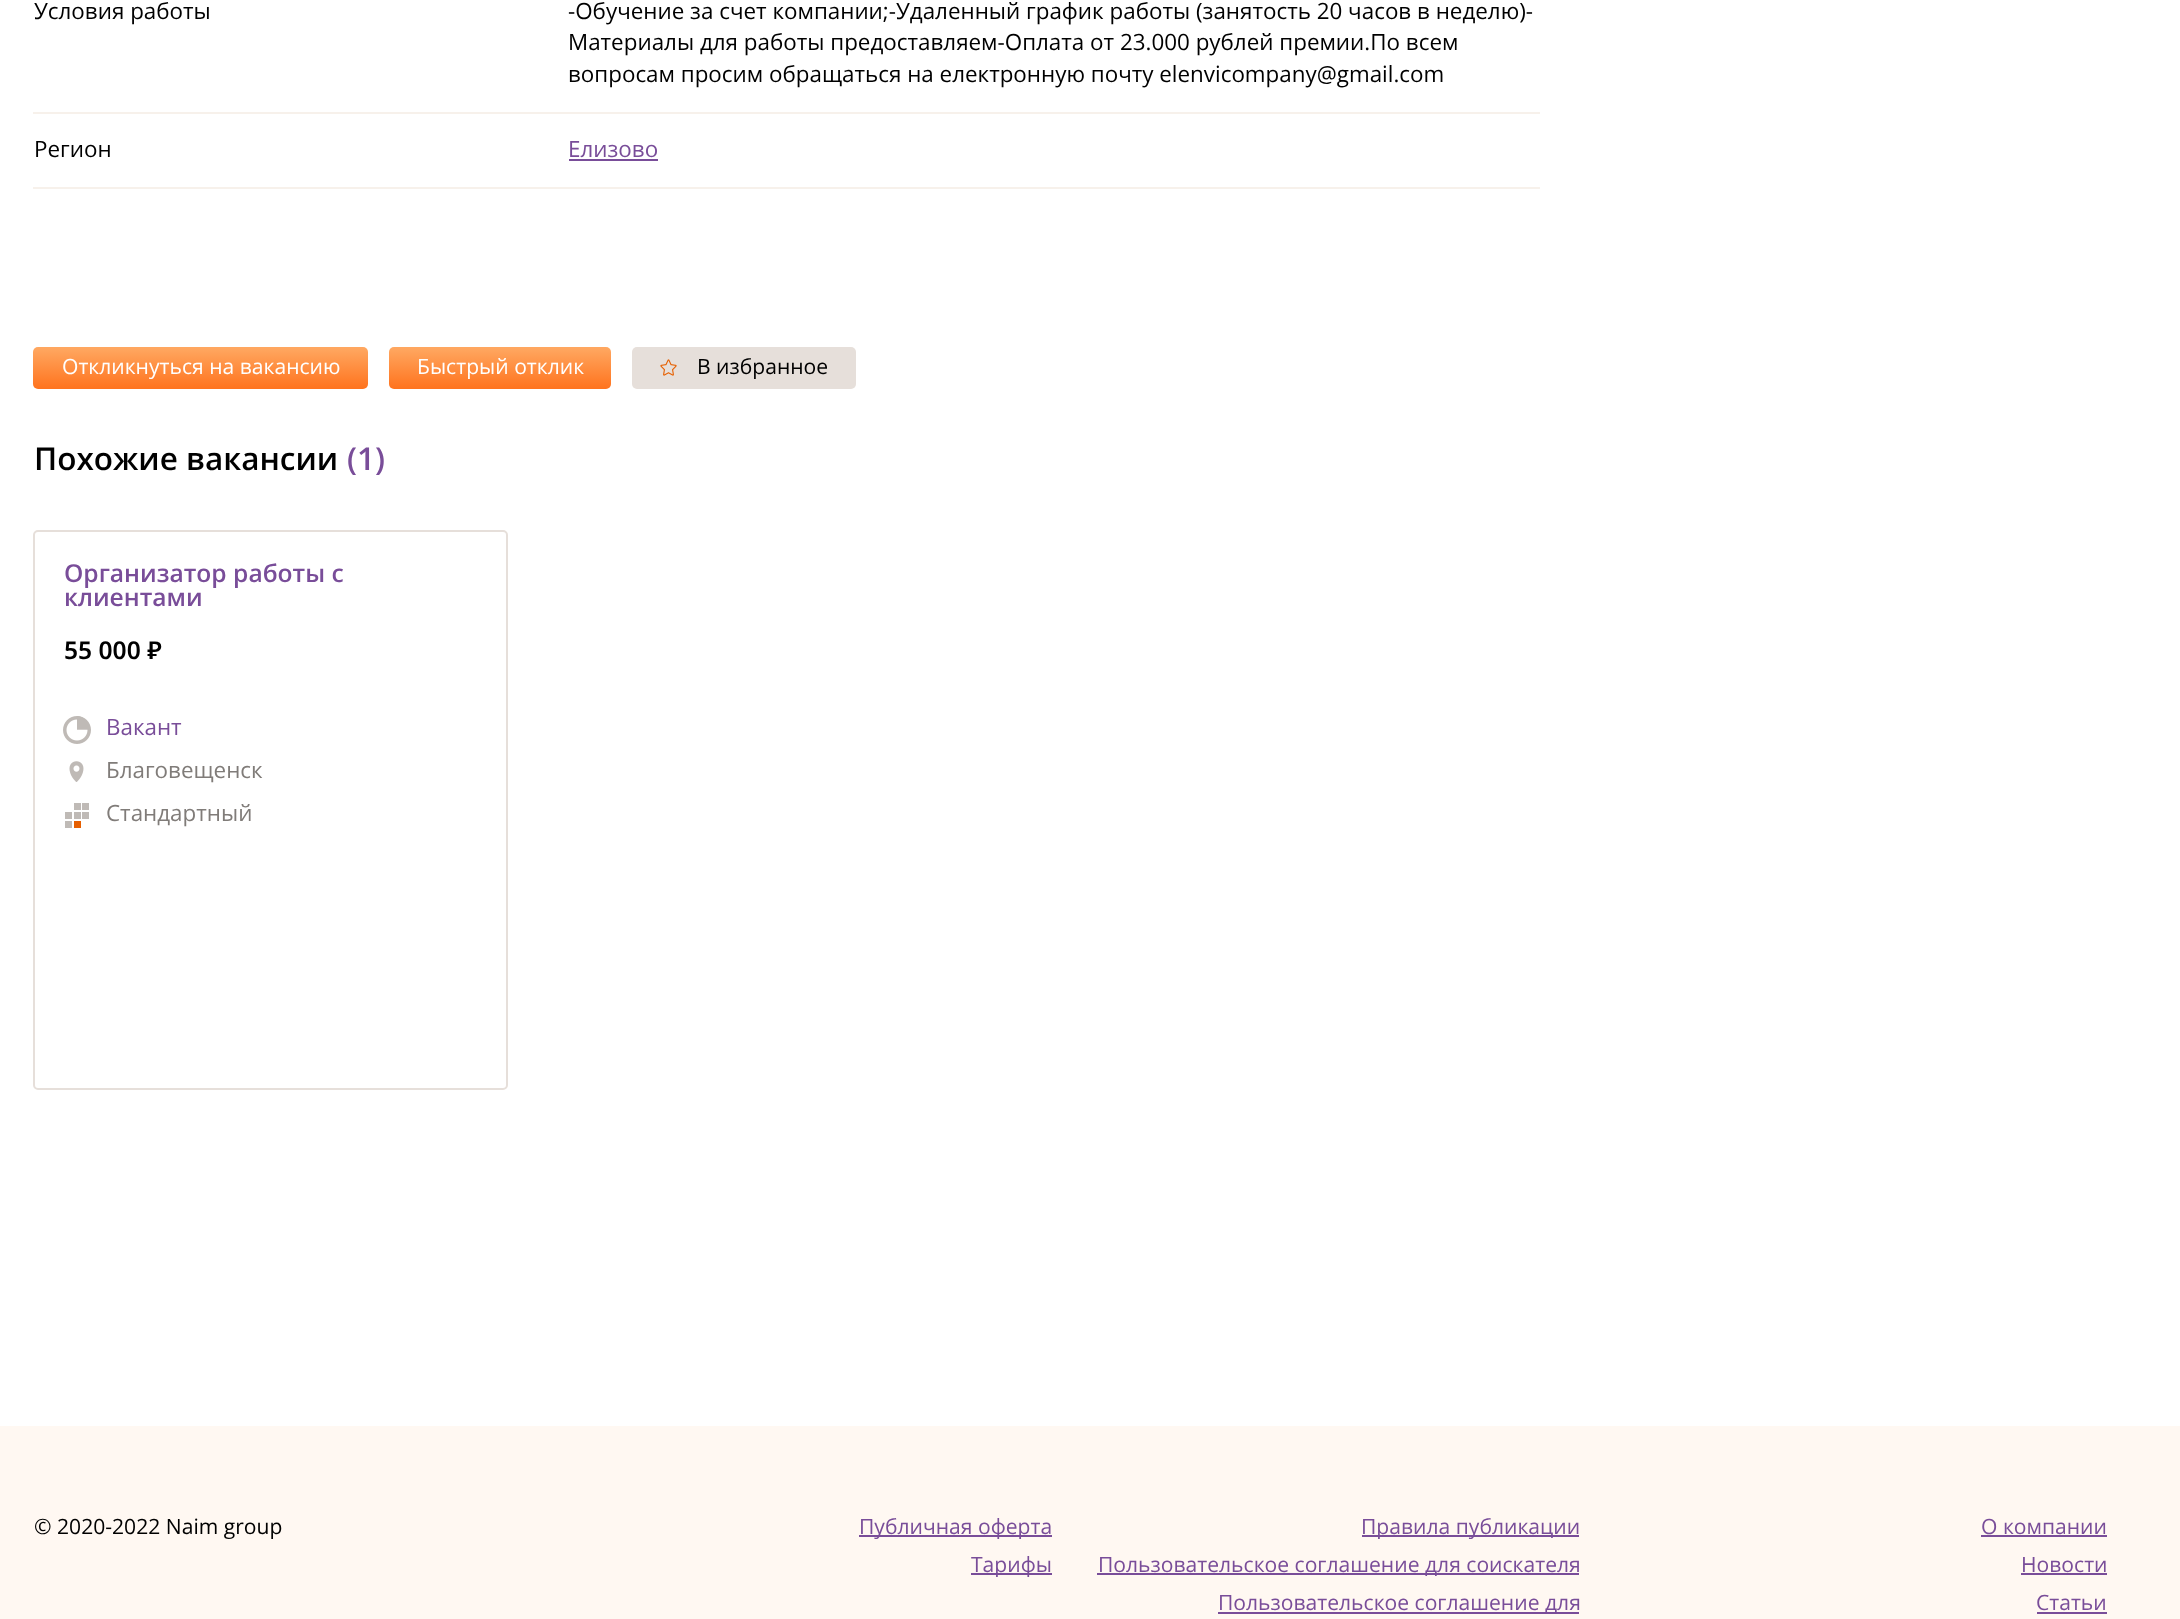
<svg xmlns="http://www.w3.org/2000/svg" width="2180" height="1619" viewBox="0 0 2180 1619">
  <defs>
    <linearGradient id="g1" gradientUnits="userSpaceOnUse" x1="200" y1="347" x2="200" y2="389"><stop offset="0.03" stop-color="rgb(255,167,96)"/><stop offset="0.98" stop-color="rgb(255,116,31)"/></linearGradient>
    <linearGradient id="g2" gradientUnits="userSpaceOnUse" x1="500" y1="347" x2="500" y2="389"><stop offset="0.03" stop-color="rgb(255,167,96)"/><stop offset="0.98" stop-color="rgb(255,116,31)"/></linearGradient>
  </defs>
  <rect width="100%" height="100%" fill="rgb(255,255,255)"/>
  <text x="34" y="19" font-family="Open Sans" font-size="22.4" fill="rgb(0,0,0)">Условия работы</text>
  <rect x="33" y="112" width="1507" height="2" fill="rgb(247,241,235)"/>
  <g font-family="Open Sans" font-size="22.4" fill="rgb(0,0,0)">
    <text>
      <tspan x="568" y="19">-Обучение за счет компании;-Удаленный график работы (занятость 20 часов в неделю)-</tspan>
      <tspan x="568" y="50">Материалы для работы предоставляем-Оплата от 23.000 рублей премии.По всем</tspan>
      <tspan x="568" y="82">вопросам просим обращаться на електронную почту elenvicompany@gmail.com</tspan>
    </text>
    <text x="34" y="157">Регион</text>
  </g>
  <rect x="33" y="187" width="1507" height="2" fill="rgb(247,241,235)"/>
  <text x="568" y="157" font-family="Open Sans" font-size="22.4" fill="rgb(121,77,153)">Елизово</text>
  <rect x="569" y="159" width="89" height="2" fill="rgb(121,77,153)"/>
  <rect x="33" y="347" width="335" height="42" rx="5" fill="url(#g1)"/>
  <text x="62" y="374" font-family="Open Sans" font-size="21.1" fill="rgb(255,255,255)">Откликнуться на вакансию</text>
  <rect x="389" y="347" width="222" height="42" rx="5" fill="url(#g2)"/>
  <text x="417" y="374" font-family="Open Sans" font-size="21.1" fill="rgb(255,255,255)">Быстрый отклик</text>
  <rect x="632" y="347" width="224" height="42" rx="5" fill="rgb(230,223,218)"/>
  <image x="660" y="359" width="17" height="17" href="pic1.png"/>
  <text x="697" y="374" font-family="Open Sans" font-size="21.1" fill="rgb(0,0,0)">В избранное</text>
  <text x="34" y="470" font-family="Open Sans" font-size="31.5" font-weight="600" fill="rgb(0,0,0)">Похожие вакансии</text>
  <text x="347" y="470" font-family="Open Sans" font-size="31.5" font-weight="600" fill="rgb(121,77,153)">(1)</text>
  <rect x="34" y="531" width="473" height="558" rx="4" fill="none" stroke="rgb(230,223,218)" stroke-width="2"/>
  <g font-family="Open Sans" font-size="24.6" font-weight="600" fill="rgb(121,77,153)">
    <text>
      <tspan x="64" y="582">Организатор работы с</tspan>
      <tspan x="64" y="606">клиентами</tspan>
    </text>
  </g>
  <text x="64" y="659" font-family="Noto Sans" font-size="24.6" font-weight="600" fill="rgb(0,0,0)">55 000 ₽</text>
  <image x="63" y="716" width="28" height="28" href="pic2.png"/>
  <text x="106" y="735" font-family="Open Sans" font-size="22.4" fill="rgb(121,77,153)">Вакант</text>
  <image x="69" y="761" width="15" height="21" href="pic3.png"/>
  <text x="106" y="778" font-family="Open Sans" font-size="22.4" fill="rgb(128,124,121)">Благовещенск</text>
  <image x="65" y="803" width="24" height="25" href="pic4.png"/>
  <text x="106" y="821" font-family="Open Sans" font-size="22.4" fill="rgb(128,124,121)">Стандартный</text>
  <rect x="0" y="1426" width="2180" height="193" fill="rgb(255,248,242)"/>
  <text x="34" y="1534" font-family="Open Sans" font-size="21.1" fill="rgb(0,0,0)">© 2020-2022 Naim group</text>
  <rect x="859" y="1535" width="193" height="2" fill="rgb(121,77,153)"/>
  <text x="859" y="1534" font-family="Open Sans" font-size="21.1" fill="rgb(121,77,153)">Публичная оферта</text>
  <rect x="971" y="1573" width="81" height="2" fill="rgb(121,77,153)"/>
  <text x="971" y="1572" font-family="Open Sans" font-size="21.1" fill="rgb(121,77,153)">Тарифы</text>
  <rect x="1362" y="1535" width="217" height="2" fill="rgb(121,77,153)"/>
  <text x="1361" y="1534" font-family="Open Sans" font-size="21.1" fill="rgb(121,77,153)">Правила публикации</text>
  <rect x="1097" y="1573" width="482" height="2" fill="rgb(121,77,153)"/>
  <text x="1098" y="1572" font-family="Open Sans" font-size="21.1" fill="rgb(121,77,153)">Пользовательское соглашение для соискателя</text>
  <rect x="1218" y="1612" width="361" height="2" fill="rgb(121,77,153)"/>
  <g font-family="Open Sans" font-size="21.1" fill="rgb(121,77,153)">
    <text x="1218" y="1610">Пользовательское соглашение для</text>
    <text x="1981" y="1534">О компании</text>
  </g>
  <rect x="1981" y="1535" width="126" height="2" fill="rgb(121,77,153)"/>
  <text x="2021" y="1572" font-family="Open Sans" font-size="21.1" fill="rgb(121,77,153)">Новости</text>
  <rect x="2021" y="1573" width="86" height="2" fill="rgb(121,77,153)"/>
  <text x="2036" y="1610" font-family="Open Sans" font-size="21.1" fill="rgb(121,77,153)">Статьи</text>
  <rect x="2037" y="1612" width="70" height="2" fill="rgb(121,77,153)"/>
</svg>
